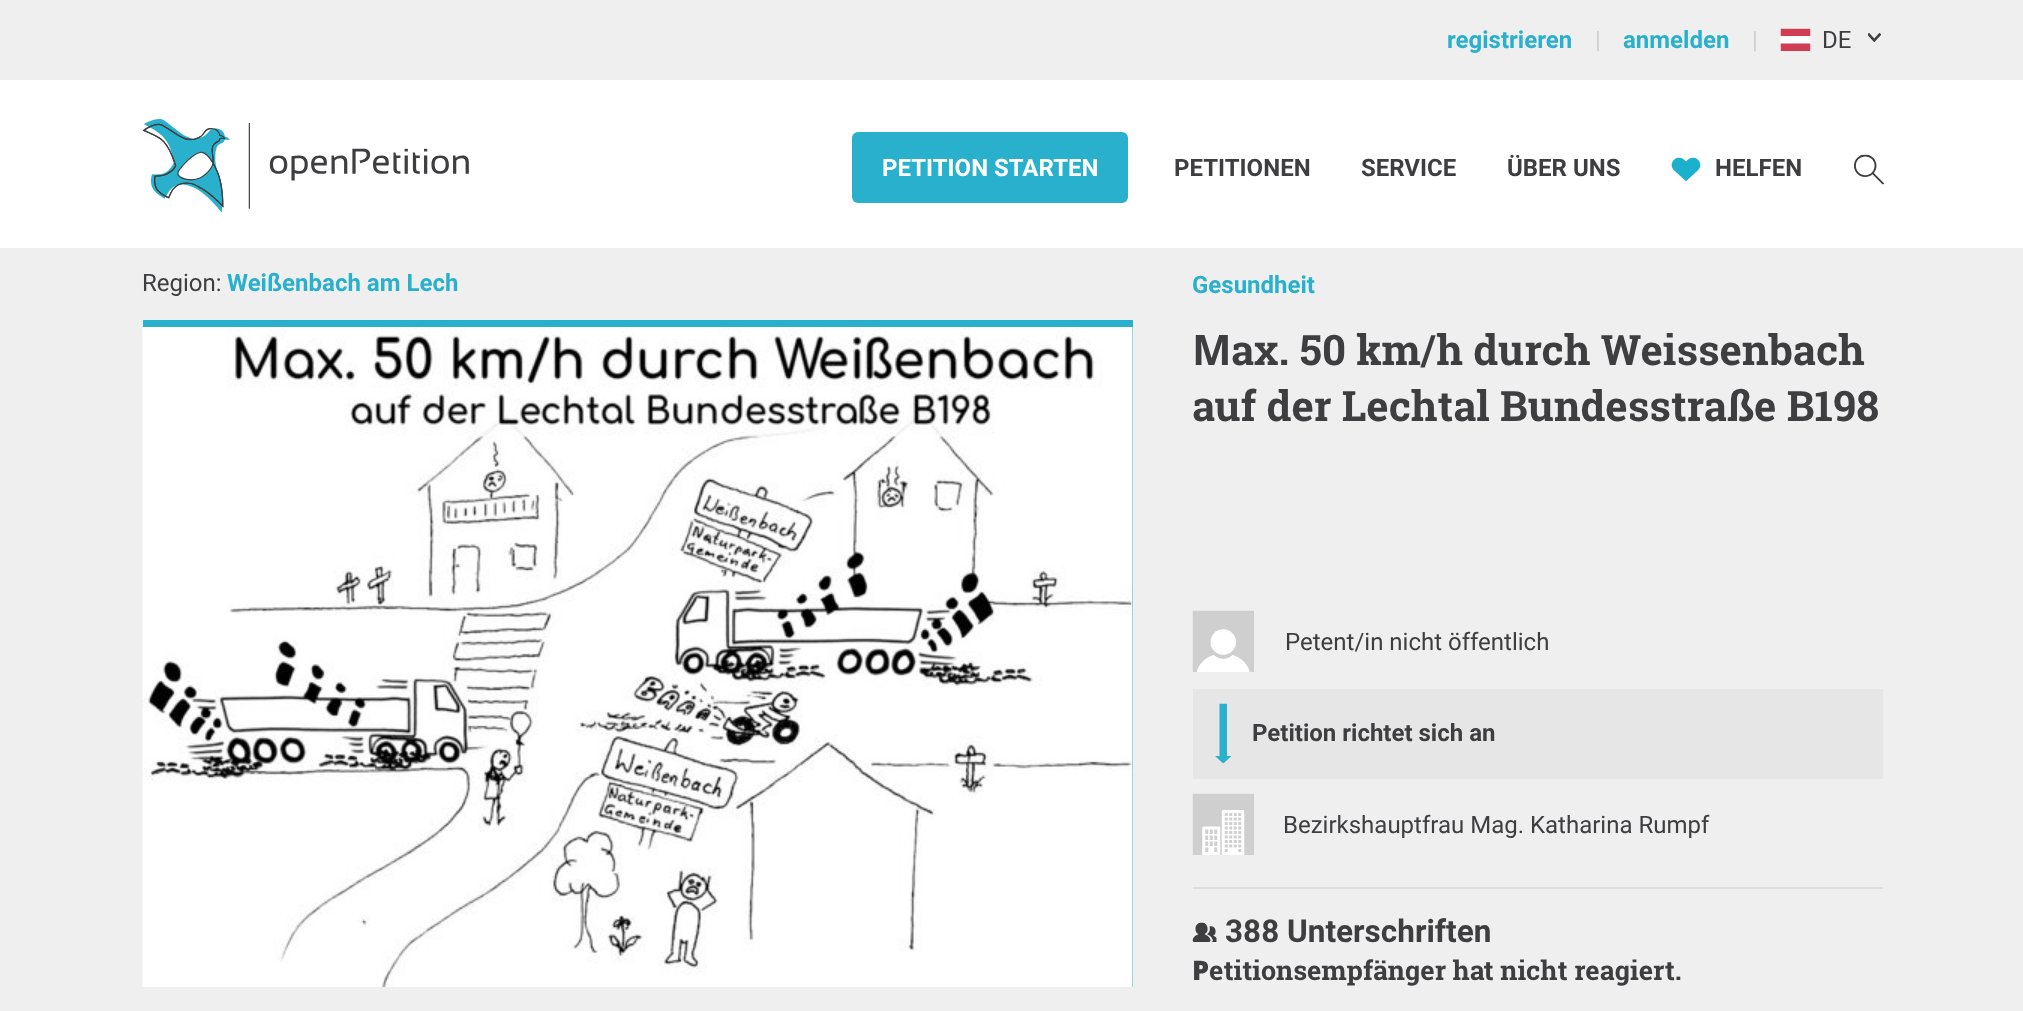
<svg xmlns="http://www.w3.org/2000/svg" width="2023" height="1011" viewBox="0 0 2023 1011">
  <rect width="100%" height="100%" fill="rgb(255,255,255)"/>
  <rect x="0" y="0" width="2023" height="80" fill="rgb(239,239,239)"/>
  <text x="1447" y="48" font-family="Roboto" font-size="24" font-weight="bold" fill="rgb(41,176,204)">registrieren</text>
  <text x="1595" y="48" font-family="Roboto" font-size="24" fill="rgb(207,207,207)">|</text>
  <text x="1623" y="48" font-family="Roboto" font-size="24" font-weight="bold" fill="rgb(41,176,204)">anmelden</text>
  <text x="1752" y="48" font-family="Roboto" font-size="24" fill="rgb(207,207,207)">|</text>
  <image x="1780" y="28" width="31" height="23" href="pic1.png"/>
  <text x="1822" y="48" font-family="Roboto" font-size="24" fill="rgb(62,61,64)">DE</text>
  <image x="1868" y="33" width="13" height="9" href="pic2.png"/>
  <image x="142" y="119" width="327" height="94" href="pic3.png"/>
  <rect x="852" y="132" width="276" height="71" rx="6" fill="rgb(41,176,204)"/>
  <text x="882" y="176" font-family="Roboto" font-size="24" font-weight="bold" fill="rgb(255,255,255)">PETITION STARTEN</text>
  <g font-family="Roboto" font-size="24" font-weight="bold" fill="rgb(62,61,64)">
    <text x="1174" y="176">PETITIONEN</text>
    <text x="1361" y="176">SERVICE</text>
    <text x="1507" y="176">ÜBER UNS</text>
  </g>
  <image x="1671" y="157" width="30" height="25" href="pic4.png"/>
  <text x="1715" y="176" font-family="Roboto" font-size="24" font-weight="bold" fill="rgb(62,61,64)">HELFEN</text>
  <image x="1854" y="154" width="30" height="31" href="pic5.png"/>
  <rect x="0" y="248" width="2023" height="763" fill="rgb(239,239,239)"/>
  <text x="142" y="291" font-family="Roboto" font-size="24" fill="rgb(62,61,64)">Region:</text>
  <text x="227" y="291" font-family="Roboto" font-size="24" font-weight="bold" fill="rgb(41,176,204)">Weißenbach am Lech</text>
  <rect x="143" y="320" width="990" height="667" fill="rgb(41,176,204)"/>
  <image x="142" y="327" width="991" height="660" href="pic6.png"/>
  <text x="1192" y="293" font-family="Roboto" font-size="24" font-weight="bold" fill="rgb(41,176,204)">Gesundheit</text>
  <text x="1192" y="365" font-family="Noto Sans" font-size="42" font-weight="bold" fill="rgb(62,61,64)">M</text>
  <g font-family="Roboto Slab" font-size="42" font-weight="bold" fill="rgb(62,61,64)">
    <text x="1231" y="365">ax. 50 km/h durch Weissenbach</text>
    <text x="1192" y="421">auf der Lechtal Bundesstraße B198</text>
  </g>
  <image x="1192" y="610" width="62" height="62" href="pic7.png"/>
  <text x="1285" y="650" font-family="Roboto" font-size="24" fill="rgb(62,61,64)">Petent/in nicht öffentlich</text>
  <rect x="1193" y="689" width="690" height="90" fill="rgb(230,230,230)"/>
  <image x="1215" y="703" width="17" height="61" href="pic8.png"/>
  <text x="1252" y="741" font-family="Roboto" font-size="24" font-weight="bold" fill="rgb(62,61,64)">Petition richtet sich an</text>
  <image x="1192" y="793" width="62" height="62" href="pic9.png"/>
  <text x="1283" y="833" font-family="Roboto" font-size="24" fill="rgb(62,61,64)">Bezirkshauptfrau Mag. Katharina Rumpf</text>
  <rect x="1193" y="887" width="690" height="2" fill="rgb(222,222,222)"/>
  <image x="1192" y="922" width="25" height="20" href="pic10.png"/>
  <text x="1225" y="942" font-family="Roboto" font-size="31.5" font-weight="bold" fill="rgb(62,61,64)">388 Unterschriften</text>
  <text x="1192" y="980" font-family="Noto Sans" font-size="27" font-weight="900" fill="rgb(62,61,64)">P</text>
  <text x="1209" y="980" font-family="Roboto Slab" font-size="27" font-weight="bold" fill="rgb(62,61,64)">etitionsempfänger hat nicht reagiert.</text>
</svg>
